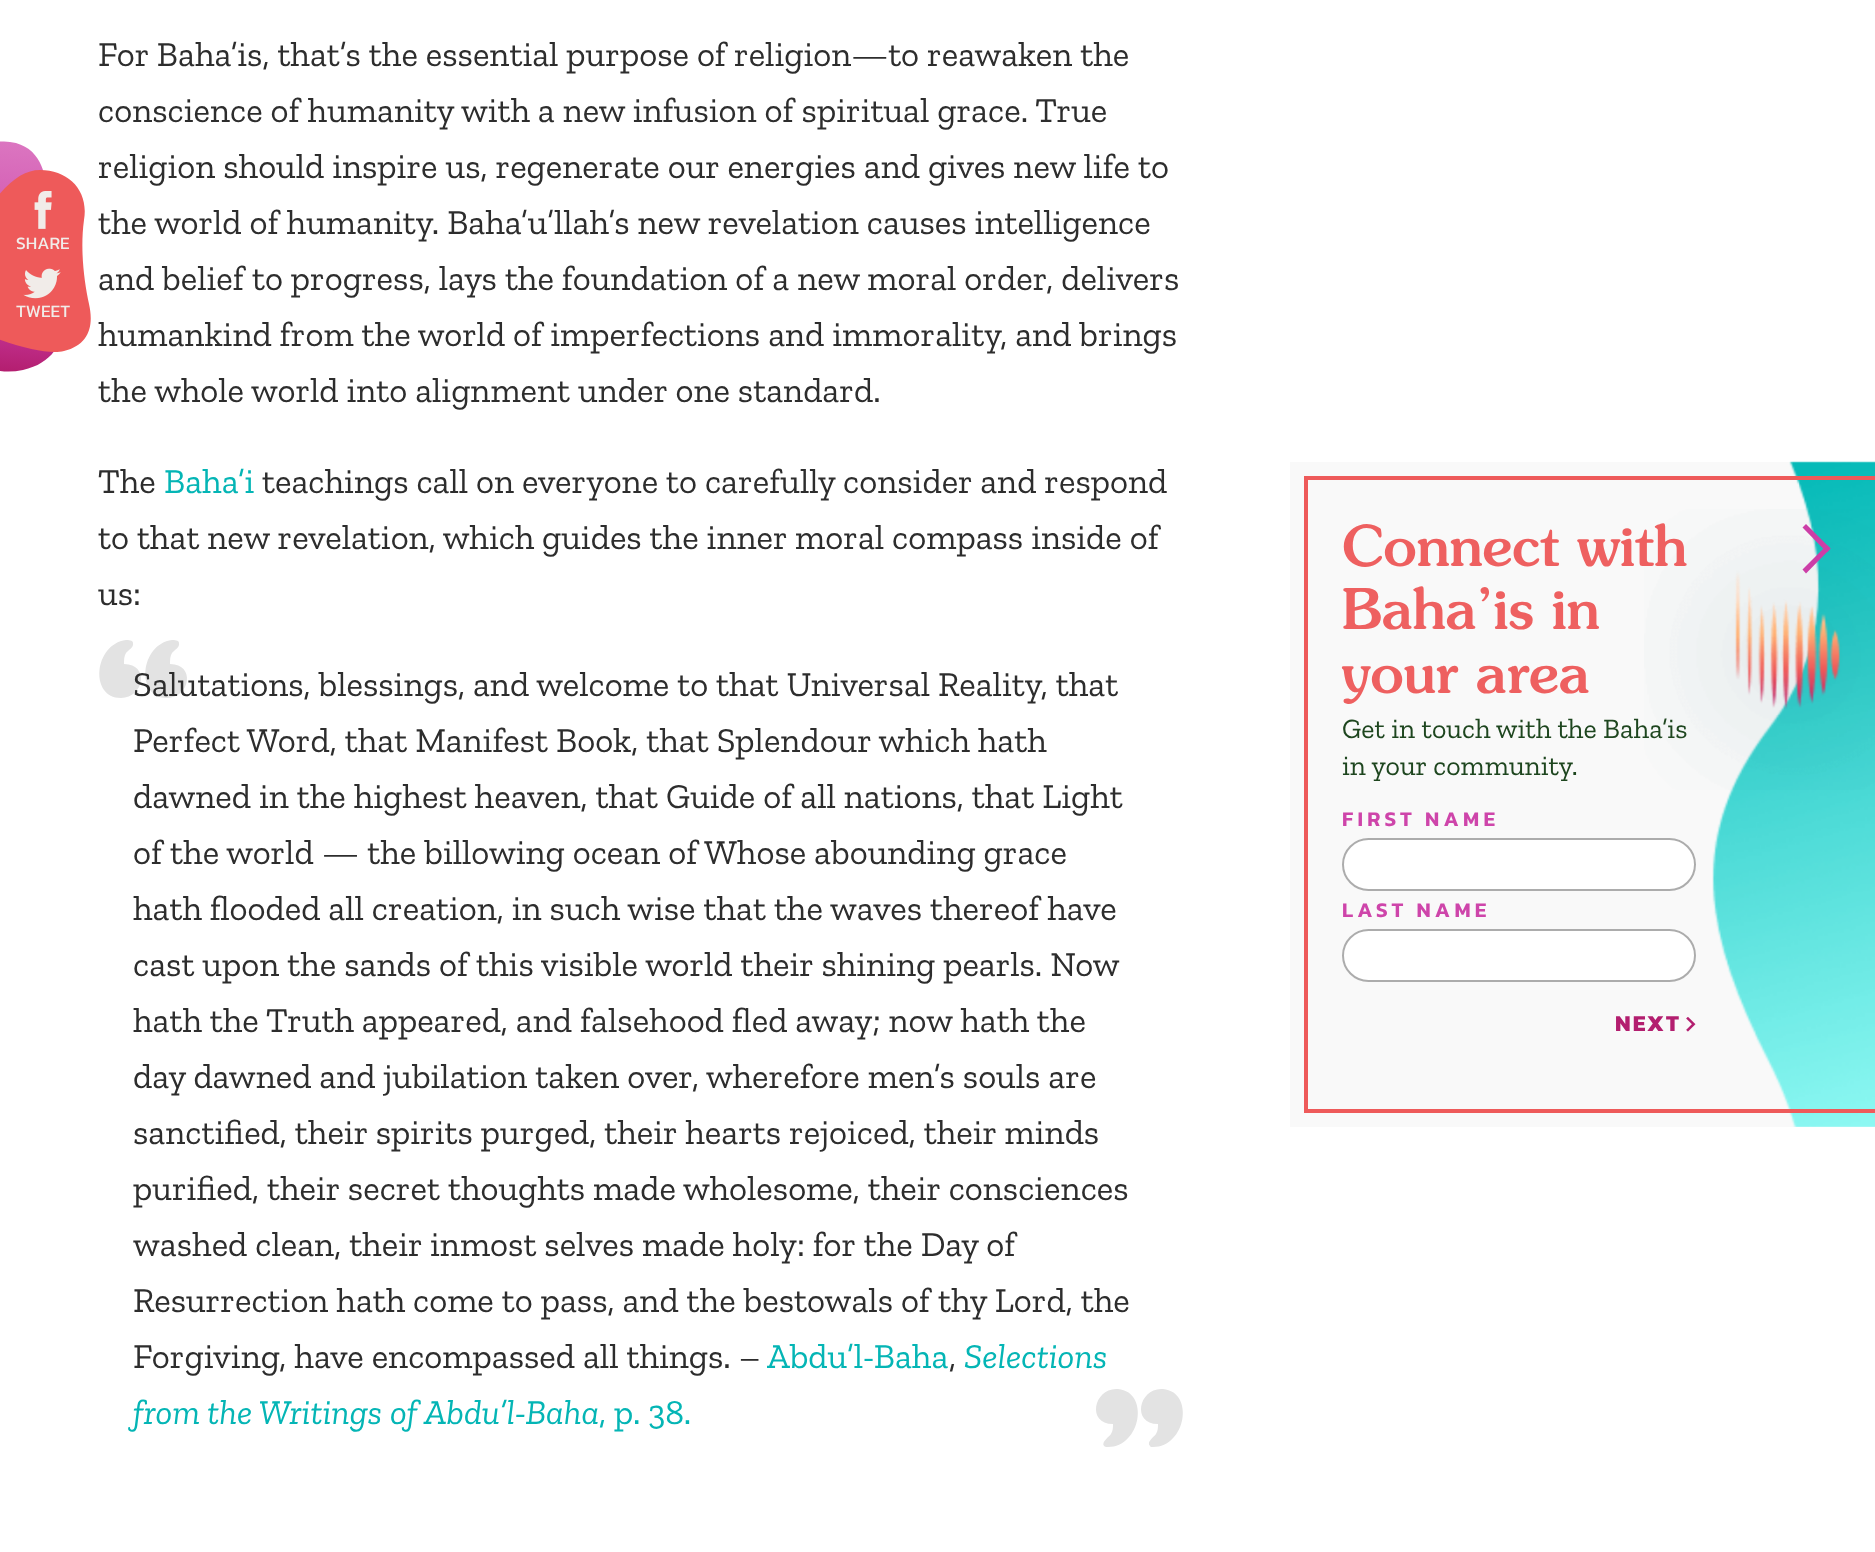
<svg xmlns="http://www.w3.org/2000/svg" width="1875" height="1552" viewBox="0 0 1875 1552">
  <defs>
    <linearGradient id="g1" gradientUnits="userSpaceOnUse" x1="18" y1="143" x2="-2" y2="371"><stop offset="0" stop-color="rgb(219,117,192)"/><stop offset="0.73" stop-color="rgb(202,59,162)"/><stop offset="1" stop-color="rgb(179,30,111)"/></linearGradient>
  </defs>
  <rect width="100%" height="100%" fill="rgb(255,255,255)"/>
  <path d="M-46 177C-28 148-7 137 16 143C51 153 47 196 46 213C44 230 42 247 56 283C70 320 67 360 23 370C-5 376-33 365-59 336Z" fill="url(#g1)" fill-rule="evenodd"/>
  <path d="M-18 219C2 186 21 170 40 170C69 170 89 191 84 220C80 249 84 281 89 304C94 326 89 345 64 351C48 355 15 347-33 327Z" fill="rgb(238,90,90)" fill-rule="evenodd"/>
  <image x="34" y="191" width="18" height="38" href="pic1.png"/>
  <text x="16" y="249" font-family="Kanit" font-size="17.5" fill="rgb(241,236,233)">SHARE</text>
  <image x="23" y="268" width="38" height="31" href="pic2.png"/>
  <text x="16" y="317" font-family="Kanit" font-size="17.5" fill="rgb(241,236,233)">TWEET</text>
  <g font-family="Zilla Slab" font-size="35" fill="rgb(45,45,45)">
    <text>
      <tspan x="98" y="66">For Baha’is, that’s the essential purpose of religion—to reawaken the</tspan>
      <tspan x="98" y="122">conscience of humanity with a new infusion of spiritual grace. True</tspan>
      <tspan x="98" y="178">religion should inspire us, regenerate our energies and gives new life to</tspan>
      <tspan x="98" y="234">the world of humanity. Baha’u’llah’s new revelation causes intelligence</tspan>
      <tspan x="98" y="290">and belief to progress, lays the foundation of a new moral order, delivers</tspan>
      <tspan x="98" y="346">humankind from the world of imperfections and immorality, and brings</tspan>
      <tspan x="98" y="402">the whole world into alignment under one standard.</tspan>
    </text>
    <text x="98" y="493">The</text>
  </g>
  <text x="164" y="493" font-family="Zilla Slab" font-size="35" fill="rgb(4,181,181)">Baha’i</text>
  <g font-family="Zilla Slab" font-size="35" fill="rgb(45,45,45)">
    <text x="262" y="493">teachings call on everyone to carefully consider and respond</text>
    <text>
      <tspan x="98" y="549">to that new revelation, which guides the inner moral compass inside of</tspan>
      <tspan x="98" y="605">us:</tspan>
    </text>
  </g>
  <path d="M121 698C144 698 150 664 124 664C124 660 124 656 126 653C128 650 134 648 133 643C133 640 128 640 126 640C94 644 89 698 121 698ZM167 698C190 698 196 664 170 664C170 660 170 656 172 653C174 650 180 648 179 643C179 640 174 640 172 640C140 644 135 698 167 698Z" fill="rgb(227,227,227)"/>
  <g font-family="Zilla Slab" font-size="35" fill="rgb(45,45,45)">
    <text>
      <tspan x="133" y="696">Salutations, blessings, and welcome to that Universal Reality, that</tspan>
      <tspan x="133" y="752">Perfect Word, that Manifest Book, that Splendour which hath</tspan>
      <tspan x="133" y="808">dawned in the highest heaven, that Guide of all nations, that Light</tspan>
      <tspan x="133" y="864">of the world — the billowing ocean of Whose abounding grace</tspan>
      <tspan x="133" y="920">hath flooded all creation, in such wise that the waves thereof have</tspan>
      <tspan x="133" y="976">cast upon the sands of this visible world their shining pearls. Now</tspan>
      <tspan x="133" y="1032">hath the Truth appeared, and falsehood fled away; now hath the</tspan>
      <tspan x="133" y="1088">day dawned and jubilation taken over, wherefore men’s souls are</tspan>
      <tspan x="133" y="1144">sanctified, their spirits purged, their hearts rejoiced, their minds</tspan>
      <tspan x="133" y="1200">purified, their secret thoughts made wholesome, their consciences</tspan>
      <tspan x="133" y="1256">washed clean, their inmost selves made holy: for the Day of</tspan>
      <tspan x="133" y="1312">Resurrection hath come to pass, and the bestowals of thy Lord, the</tspan>
      <tspan x="133" y="1368">Forgiving, have encompassed all things. –</tspan>
    </text>
  </g>
  <text x="767" y="1368" font-family="Zilla Slab" font-size="35" fill="rgb(4,181,181)">Abdu’l-Baha</text>
  <text x="949" y="1368" font-family="Zilla Slab" font-size="35" fill="rgb(45,45,45)">,</text>
  <g font-family="Zilla Slab" font-size="35" font-style="italic" fill="rgb(4,181,181)">
    <text x="964" y="1368">Selections</text>
    <text x="133" y="1424">from the Writings of Abdu’l-Baha</text>
  </g>
  <text x="599" y="1424" font-family="Zilla Slab" font-size="35" fill="rgb(4,181,181)">, p. 38.</text>
  <path d="M1108 1447C1141 1447 1150 1392 1118 1389C1094 1387 1086 1424 1113 1424C1113 1427 1113 1431 1111 1434C1109 1437 1101 1442 1104 1446C1105 1447 1107 1447 1108 1447ZM1153 1447C1186 1447 1195 1392 1163 1389C1139 1387 1131 1424 1158 1424C1158 1427 1158 1431 1156 1434C1154 1437 1146 1442 1150 1446C1150 1447 1152 1447 1153 1447Z" fill="rgb(227,227,227)"/>
  <rect x="1290" y="462" width="585" height="665" fill="rgb(249,249,249)"/>
  <image x="1712" y="461" width="163" height="666" href="pic3.png"/>
  <rect x="1306" y="478" width="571" height="633" fill="none" stroke="rgb(238,90,90)" stroke-width="4"/>
  <image x="1644" y="509" width="231" height="281" href="pic5.png"/>
  <g font-family="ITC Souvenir" font-size="56" font-weight="500" fill="rgb(238,96,96)">
    <text>
      <tspan x="1342" y="566">Connect with</tspan>
      <tspan x="1342" y="629">Baha’is in</tspan>
      <tspan x="1342" y="693">your area</tspan>
    </text>
  </g>
  <g font-family="Zilla Slab" font-size="28" fill="rgb(30,70,31)">
    <text>
      <tspan x="1342" y="738">Get in touch with the Baha’is</tspan>
      <tspan x="1342" y="775">in your community.</tspan>
    </text>
  </g>
  <text x="1342" y="826" font-family="Kanit" font-size="21" font-weight="600" letter-spacing="4.25" fill="rgb(206,69,170)">FIRST NAME</text>
  <rect x="1342" y="838" width="354" height="53" rx="26.5" fill="rgb(255,255,255)"/>
  <rect x="1343" y="839" width="352" height="51" rx="25.5" fill="none" stroke="rgba(114,114,114,0.59)" stroke-width="2"/>
  <text x="1342" y="917" font-family="Kanit" font-size="21" font-weight="600" letter-spacing="4.25" fill="rgb(206,69,170)">LAST NAME</text>
  <rect x="1342" y="929" width="354" height="53" rx="26.5" fill="rgb(255,255,255)"/>
  <rect x="1343" y="930" width="352" height="51" rx="25.5" fill="none" stroke="rgba(114,114,114,0.59)" stroke-width="2"/>
  <text x="1615" y="1031" font-family="Kanit" font-size="23" font-weight="bold" letter-spacing="2" fill="rgb(179,30,111)">NEXT</text>
  <image x="1686" y="1017" width="10" height="15" href="pic4.png"/>
  <path d="M1806 524L1830.5 548.5L1827 552.5L1802.5 527.5Z" fill="rgb(204,62,167)"/>
  <path d="M1827 545L1830.5 548.5L1806 573.5L1802.5 569.5Z" fill="rgb(204,62,167)"/>
</svg>
